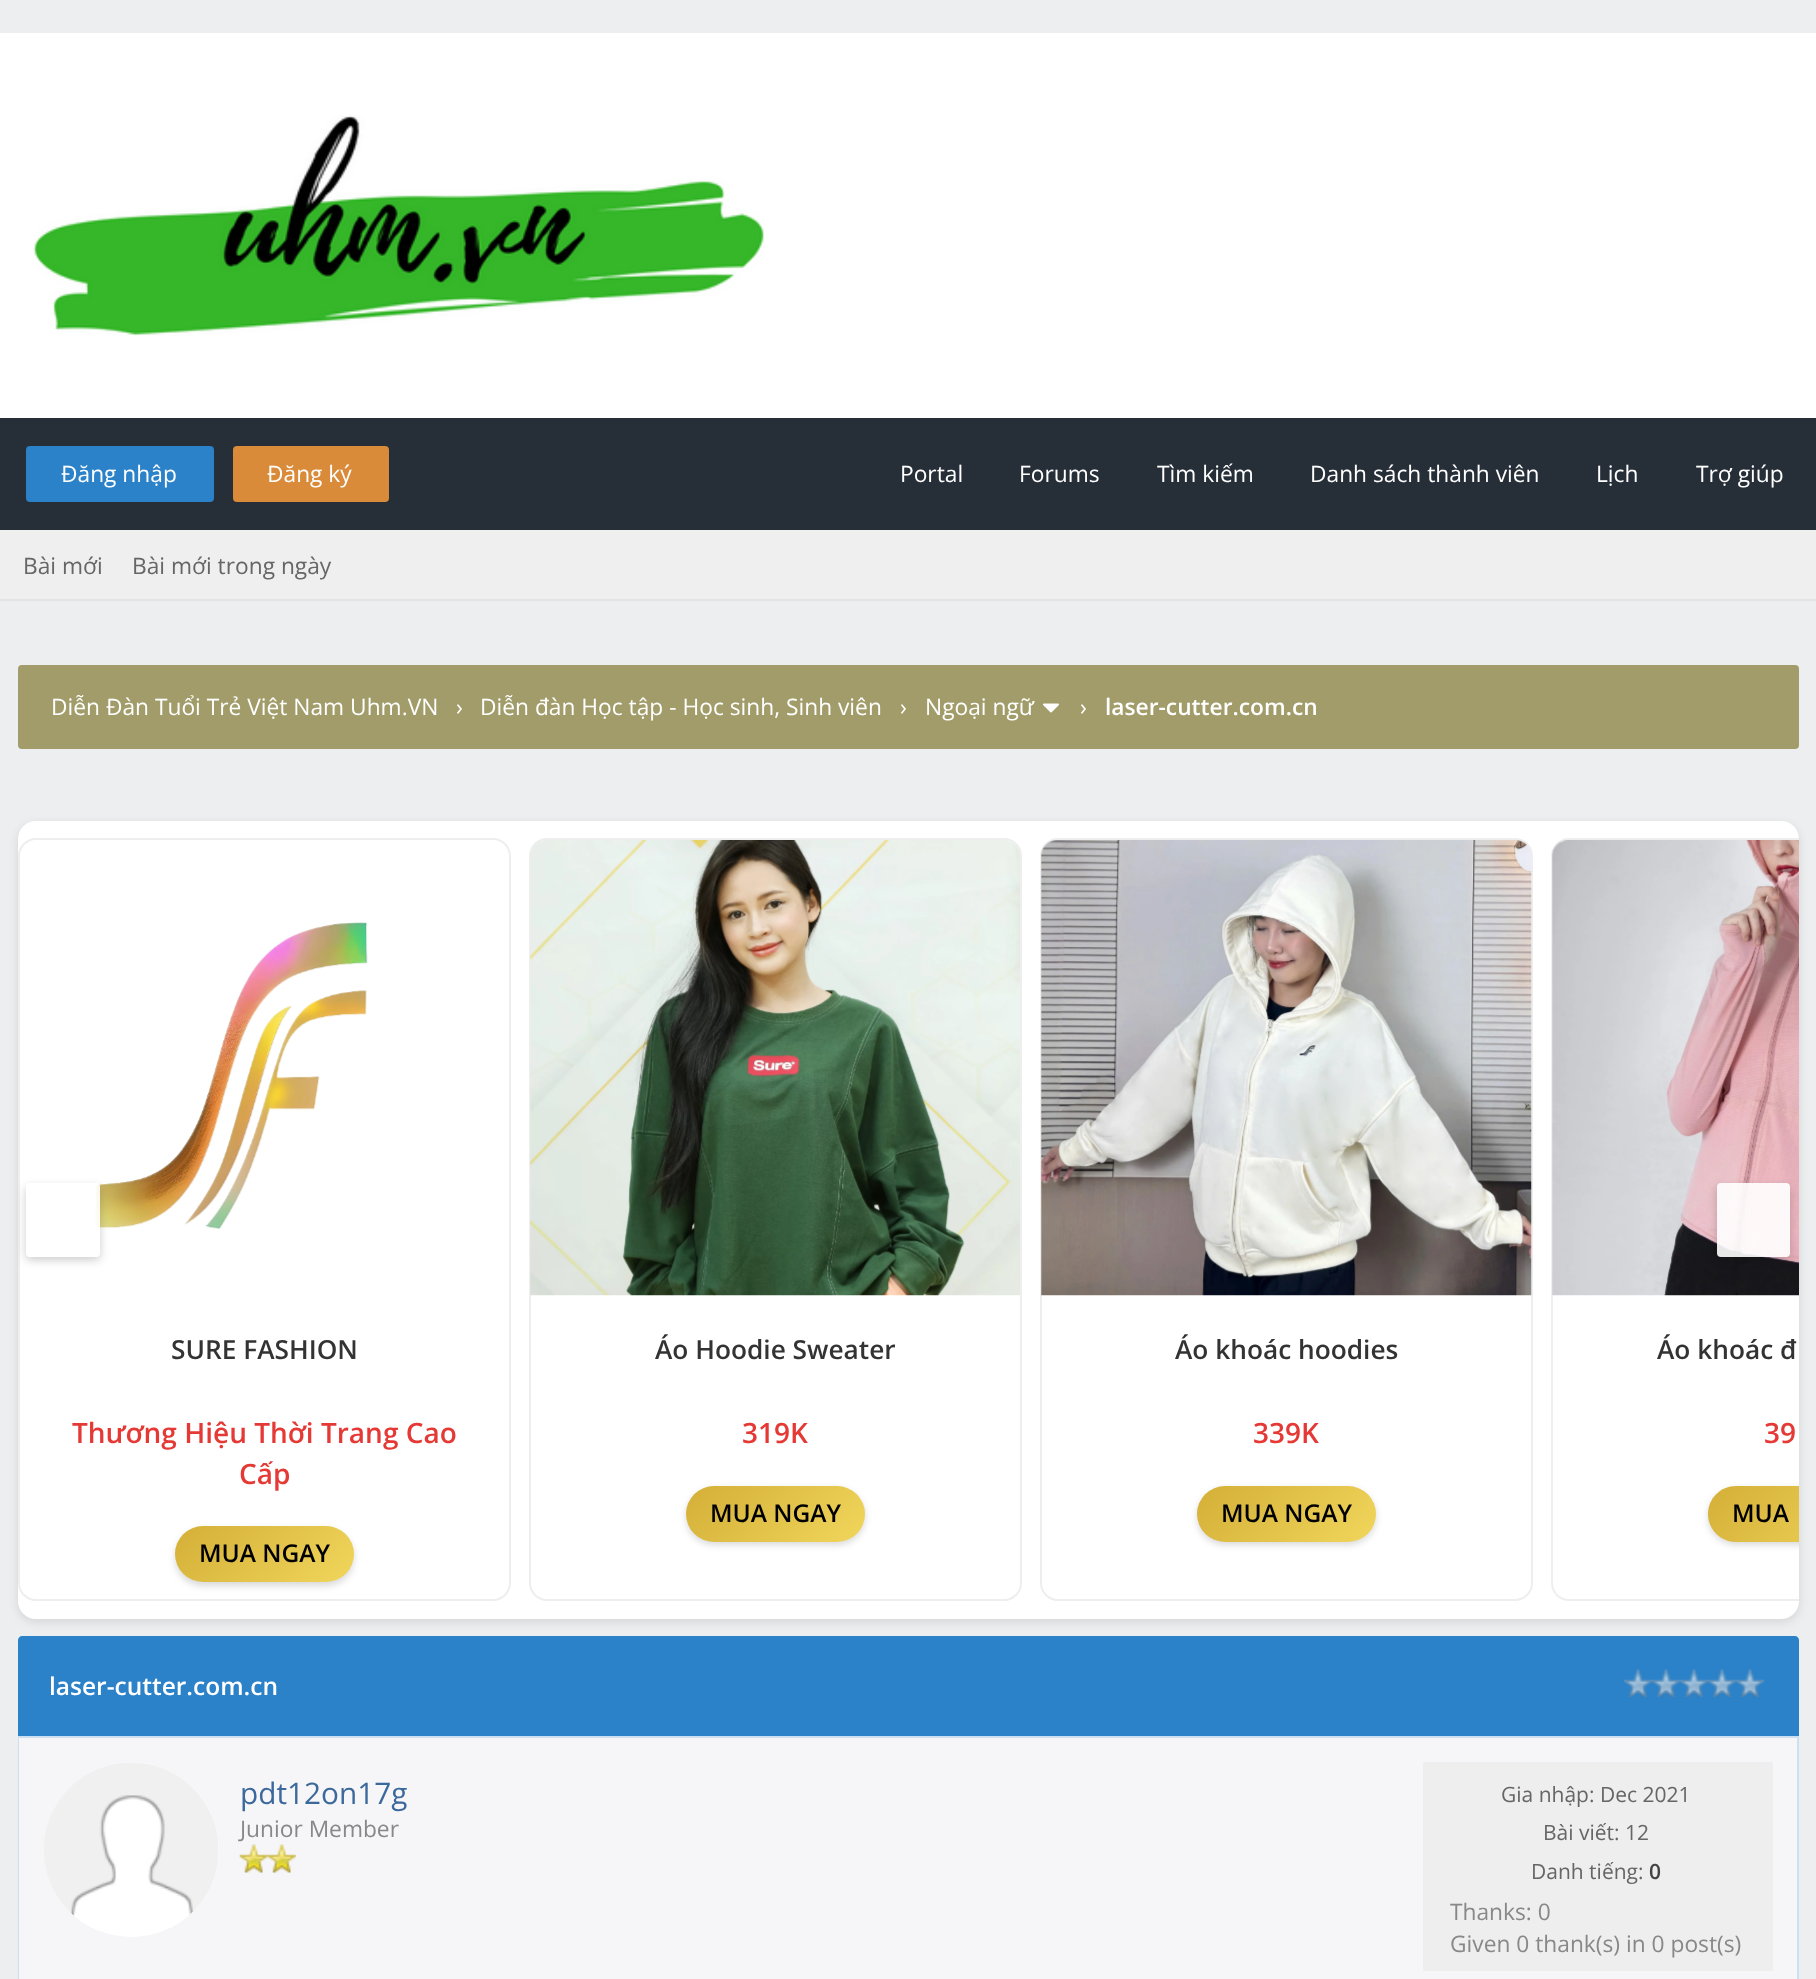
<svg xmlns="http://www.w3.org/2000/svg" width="1816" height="1979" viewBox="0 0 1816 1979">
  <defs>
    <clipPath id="clip1"><path d="M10 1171H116V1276H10ZM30 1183H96C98 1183 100 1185 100 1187V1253C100 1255 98 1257 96 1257H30C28 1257 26 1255 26 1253V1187C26 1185 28 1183 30 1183Z" clip-rule="evenodd"/></clipPath>
    <clipPath id="clip2"><path d="M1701 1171H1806V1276H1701ZM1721 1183H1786C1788 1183 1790 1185 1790 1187V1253C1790 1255 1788 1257 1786 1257H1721C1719 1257 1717 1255 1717 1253V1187C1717 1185 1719 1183 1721 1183Z" clip-rule="evenodd"/></clipPath>
    <linearGradient id="g1" gradientUnits="userSpaceOnUse" x1="206" y1="1495" x2="323" y2="1613"><stop offset="0" stop-color="rgb(212,175,55)"/><stop offset="1" stop-color="rgb(241,214,92)"/></linearGradient>
    <linearGradient id="g2" gradientUnits="userSpaceOnUse" x1="717" y1="1455" x2="834" y2="1572"><stop offset="0" stop-color="rgb(212,175,55)"/><stop offset="1" stop-color="rgb(241,214,92)"/></linearGradient>
    <linearGradient id="g3" gradientUnits="userSpaceOnUse" x1="1228" y1="1455" x2="1345" y2="1572"><stop offset="0" stop-color="rgb(212,175,55)"/><stop offset="1" stop-color="rgb(241,214,92)"/></linearGradient>
    <clipPath id="clip3"><rect x="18" y="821" width="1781" height="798" rx="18"/></clipPath>
    <linearGradient id="g4" gradientUnits="userSpaceOnUse" x1="1739" y1="1455" x2="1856" y2="1572"><stop offset="0" stop-color="rgb(212,175,55)"/><stop offset="1" stop-color="rgb(241,214,92)"/></linearGradient>
  </defs>
  <rect width="100%" height="100%" fill="rgb(236,238,240)"/>
  <rect x="0" y="33" width="1816" height="385" fill="rgb(255,255,255)"/>
  <image x="33" y="115" width="732" height="221" href="pic1.png"/>
  <rect x="0" y="418" width="1816" height="112" fill="rgb(38,46,56)"/>
  <rect x="26" y="446" width="188" height="56" rx="4" fill="rgb(44,130,201)"/>
  <text x="61" y="482" font-family="Open Sans" font-size="22.75" fill="rgb(255,255,255)">Đăng nhập</text>
  <rect x="233" y="446" width="156" height="56" rx="4" fill="rgb(217,139,58)"/>
  <g font-family="Open Sans" font-size="22.75" fill="rgb(255,255,255)">
    <text x="267" y="482">Đăng ký</text>
    <text x="900" y="482">Portal</text>
    <text x="1019" y="482">Forums</text>
    <text x="1157" y="482">Tìm kiếm</text>
    <text x="1310" y="482">Danh sách thành viên</text>
    <text x="1596" y="482">Lịch</text>
    <text x="1696" y="482">Trợ giúp</text>
  </g>
  <rect x="0" y="530" width="1816" height="69" fill="rgb(239,239,239)"/>
  <rect x="0" y="599" width="1816" height="2" fill="rgb(227,227,227)"/>
  <g font-family="Open Sans" font-size="22.75" fill="rgb(102,102,102)">
    <text x="23" y="574">Bài mới</text>
    <text x="132" y="574">Bài mới trong ngày</text>
  </g>
  <rect x="18" y="665" width="1781" height="84" rx="4" fill="rgb(161,156,105)"/>
  <g font-family="Open Sans" font-size="22.75" fill="rgb(255,255,255)">
    <text x="51" y="715">Diễn Đàn Tuổi Trẻ Việt Nam Uhm.VN</text>
    <text x="456" y="715">›</text>
    <text x="480" y="715">Diễn đàn Học tập - Học sinh, Sinh viên</text>
    <text x="900" y="715">›</text>
    <text x="925" y="715">Ngoại ngữ</text>
  </g>
  <image x="1043" y="703" width="16" height="10" href="pic2.png"/>
  <text x="1080" y="715" font-family="Open Sans" font-size="22.75" fill="rgb(255,255,255)">›</text>
  <text x="1105" y="715" font-family="Open Sans" font-size="22.75" font-weight="600" fill="rgb(255,255,255)">laser-cutter.com.cn</text>
  <path d="M22 1636H1795C1797 1636 1799 1638 1799 1640V1736H18V1640C18 1638 20 1636 22 1636Z" fill="rgb(44,130,201)"/>
  <rect x="18" y="824" width="1781" height="798" rx="18" fill="rgba(0,0,0,0.1)" filter="blur(5px)"/>
  <rect x="18" y="821" width="1781" height="798" rx="18" fill="rgb(255,255,255)"/>
  <rect x="19" y="839" width="491" height="761" rx="17" fill="none" stroke="rgb(238,238,238)" stroke-width="2"/>
  <image x="95" y="922" width="273" height="308" href="pic3.png"/>
  <g clip-path="url(#clip1)">
    <rect x="26" y="1187" width="74" height="73" rx="4" fill="rgba(0,0,0,0.2)" filter="blur(5px)"/>
  </g>
  <rect x="26" y="1183" width="74" height="74" rx="4" fill="rgba(255,255,255,0.9)"/>
  <path d="M1569 838C1559 838 1551 846 1551 856V1583C1551 1593 1559 1601 1569 1601H1799V1599H1569C1560 1599 1553 1592 1553 1583V856C1553 847 1560 840 1569 840H1799V838Z" fill="rgb(238,238,238)"/>
  <image x="1552" y="840" width="247" height="456" href="pic6.png"/>
  <g clip-path="url(#clip2)">
    <rect x="1717" y="1187" width="73" height="73" rx="4" fill="rgba(0,0,0,0.2)" filter="blur(5px)"/>
  </g>
  <rect x="1717" y="1183" width="73" height="74" rx="4" fill="rgba(255,255,255,0.9)"/>
  <text x="171" y="1359" font-family="Open Sans" font-size="26.25" font-weight="600" fill="rgb(51,51,51)">SURE FASHION</text>
  <g font-family="Open Sans" font-size="28" font-weight="600" fill="rgb(229,57,53)">
    <text x="72" y="1443">Thương Hiệu Thời Trang Cao</text>
    <text x="239" y="1484">Cấp</text>
  </g>
  <rect x="175" y="1530" width="179" height="56" rx="28" fill="rgba(0,0,0,0.15)" filter="blur(3.5px)"/>
  <rect x="175" y="1526" width="179" height="56" rx="28" fill="url(#g1)"/>
  <text x="199" y="1562" font-family="Open Sans" font-size="24.5" font-weight="600" fill="rgb(0,0,0)">MUA NGAY</text>
  <rect x="530" y="839" width="491" height="761" rx="17" fill="none" stroke="rgb(238,238,238)" stroke-width="2"/>
  <image x="530" y="840" width="490" height="456" href="pic4.png"/>
  <text x="655" y="1359" font-family="Open Sans" font-size="26.25" font-weight="600" fill="rgb(51,51,51)">Áo Hoodie Sweater</text>
  <text x="742" y="1443" font-family="Open Sans" font-size="28" font-weight="600" fill="rgb(229,57,53)">319K</text>
  <rect x="686" y="1489" width="179" height="56" rx="28" fill="rgba(0,0,0,0.15)" filter="blur(3.5px)"/>
  <rect x="686" y="1486" width="179" height="56" rx="28" fill="url(#g2)"/>
  <text x="710" y="1522" font-family="Open Sans" font-size="24.5" font-weight="600" fill="rgb(0,0,0)">MUA NGAY</text>
  <rect x="1041" y="839" width="491" height="761" rx="17" fill="none" stroke="rgb(238,238,238)" stroke-width="2"/>
  <image x="1041" y="840" width="491" height="456" href="pic5.png"/>
  <text x="1175" y="1359" font-family="Open Sans" font-size="26.25" font-weight="600" fill="rgb(51,51,51)">Áo khoác hoodies</text>
  <text x="1253" y="1443" font-family="Open Sans" font-size="28" font-weight="600" fill="rgb(229,57,53)">339K</text>
  <rect x="1197" y="1489" width="179" height="56" rx="28" fill="rgba(0,0,0,0.15)" filter="blur(3.5px)"/>
  <rect x="1197" y="1486" width="179" height="56" rx="28" fill="url(#g3)"/>
  <text x="1221" y="1522" font-family="Open Sans" font-size="24.5" font-weight="600" fill="rgb(0,0,0)">MUA NGAY</text>
  <text x="1657" y="1359" font-family="Open Sans" font-size="26.25" font-weight="600" fill="rgb(51,51,51)">Áo khoác đ</text>
  <text x="1764" y="1443" font-family="Open Sans" font-size="28" font-weight="600" fill="rgb(229,57,53)">39</text>
  <g clip-path="url(#clip3)">
    <rect x="1708" y="1489" width="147" height="56" rx="28" fill="rgba(0,0,0,0.15)" filter="blur(3.5px)"/>
  </g>
  <path d="M1736 1486H1799V1542H1736C1720.5 1542 1708 1529.5 1708 1514C1708 1498.5 1720.5 1486 1736 1486Z" fill="url(#g4)"/>
  <text x="1732" y="1522" font-family="Open Sans" font-size="24.5" font-weight="600" fill="rgb(0,0,0)">MUA</text>
  <text x="49" y="1695" font-family="Open Sans" font-size="24.5" font-weight="600" fill="rgb(255,255,255)">laser-cutter.com.cn</text>
  <image x="1624" y="1669" width="140" height="29" href="pic7.png"/>
  <rect x="19" y="1737" width="1779" height="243" fill="none" stroke="rgb(205,224,241)" stroke-width="2"/>
  <rect x="19" y="1738" width="1778" height="241" fill="rgb(246,245,247)"/>
  <circle cx="131.5" cy="1849.5" r="87.5" fill="rgb(255,255,255)"/>
  <image x="44" y="1762" width="175" height="166" href="pic8.png"/>
  <text x="240" y="1804" font-family="Open Sans" font-size="29.75" fill="rgb(60,105,156)">pdt12on17g</text>
  <text x="240" y="1837" font-family="Open Sans" font-size="22.75" fill="rgb(136,136,136)">Junior Member</text>
  <image x="239" y="1844" width="29" height="29" href="pic9.png"/>
  <image x="267" y="1844" width="29" height="29" href="pic10.png"/>
  <rect x="1423" y="1762" width="350" height="209" fill="rgb(238,238,238)"/>
  <g font-family="Open Sans" font-size="21" fill="rgb(102,102,102)">
    <text x="1501" y="1802">Gia nhập: Dec 2021</text>
    <text x="1543" y="1840">Bài viết: 12</text>
    <text x="1531" y="1879">Danh tiếng:</text>
  </g>
  <text x="1649" y="1879" font-family="Open Sans" font-size="21" font-weight="600" fill="rgb(68,68,68)">0</text>
  <g font-family="Open Sans" font-size="22.75" fill="rgb(136,136,136)">
    <text>
      <tspan x="1450" y="1920">Thanks: 0</tspan>
      <tspan x="1450" y="1952">Given 0 thank(s) in 0 post(s)</tspan>
    </text>
  </g>
</svg>
